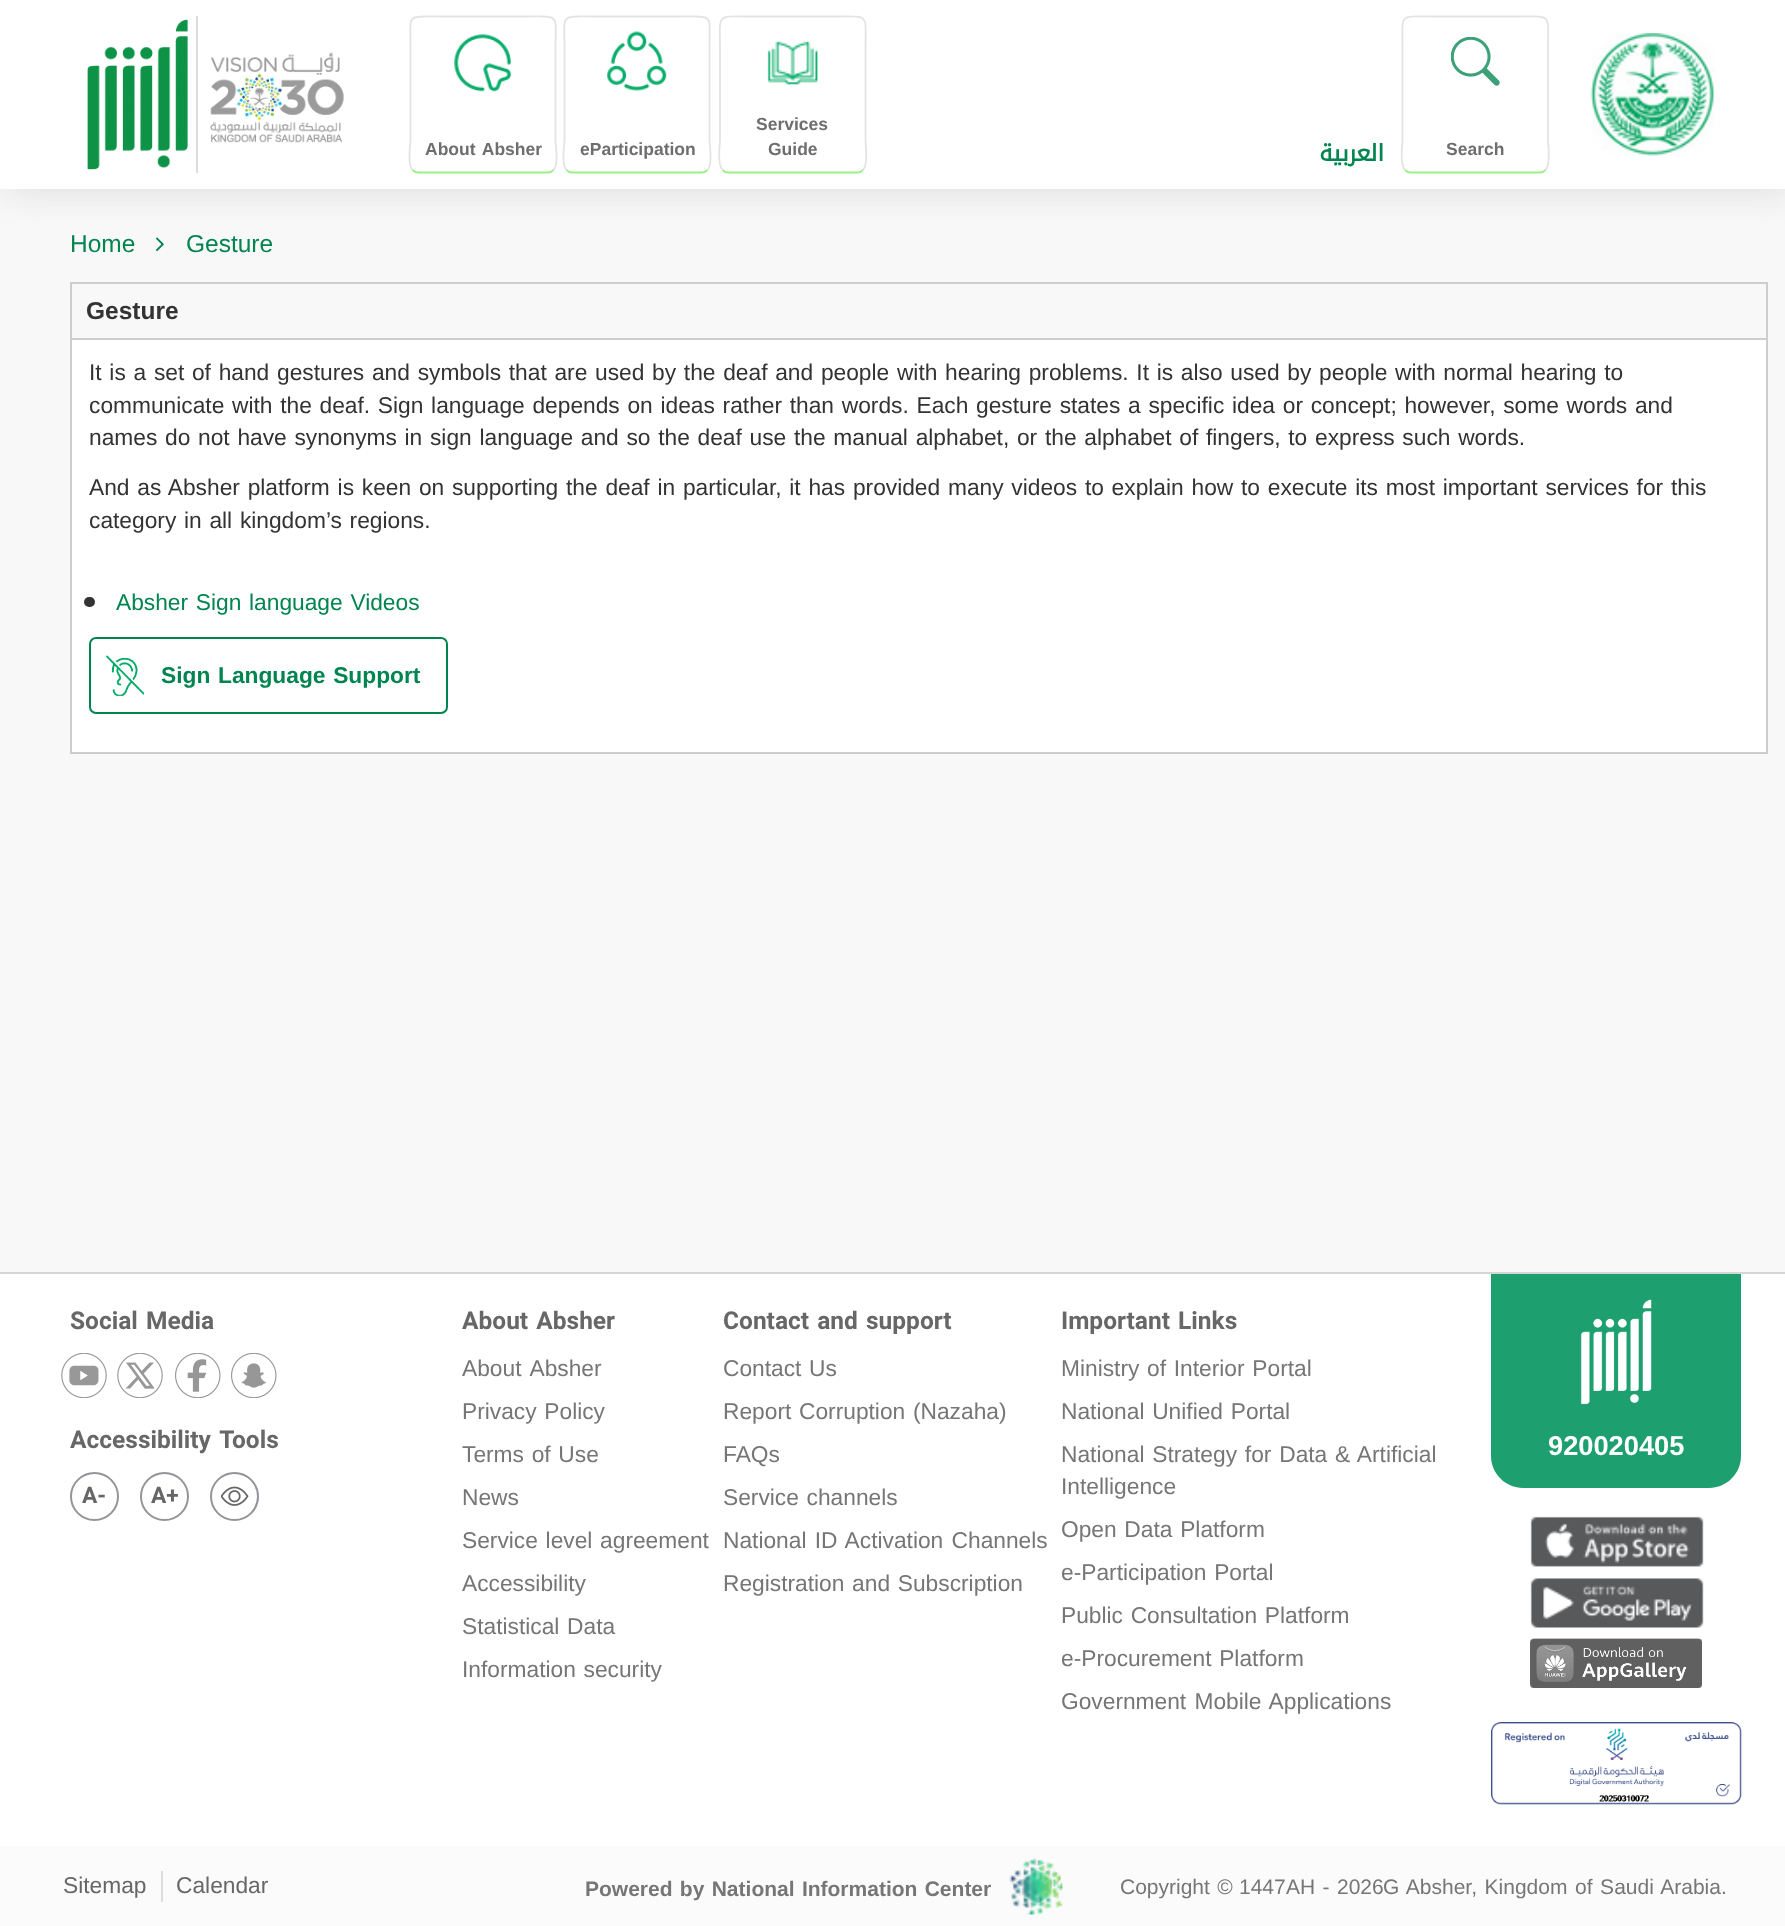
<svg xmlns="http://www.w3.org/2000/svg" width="1785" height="1926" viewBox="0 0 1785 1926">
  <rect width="100%" height="100%" fill="rgb(248,248,248)"/>
  <rect x="7" y="4" width="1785" height="189" fill="rgba(199,199,199,0.5)" filter="blur(17.5px)"/>
  <rect x="0" y="0" width="1785" height="189" fill="rgb(255,255,255)"/>
  <image x="87" y="19" width="101" height="151" href="pic1.png"/>
  <rect x="196" y="16" width="2" height="157" fill="rgb(221,221,221)"/>
  <image x="210" y="52" width="134" height="91" href="pic2.png"/>
  <path d="M553.5 170C552 171.5 550 172.5 548 172.5H418C416 172.5 414 171.5 412.5 170" fill="none" stroke="rgb(154,241,133)" stroke-width="1.8"/>
  <path d="M412.5 170C407 164.5 410.5 142.5 410.5 141V48C410.5 13 405.5 16.5 440 16.5H526C560.5 16.5 555.5 13 555.5 48V141C555.5 142.5 559 164.5 553.5 170" fill="none" stroke="rgb(227,227,227)" stroke-width="1.8"/>
  <image x="454" y="34" width="58" height="58" href="pic3.png"/>
  <text x="425" y="155" word-spacing="2" font-family="Liberation Sans" font-size="17.5" font-weight="bold" fill="rgb(110,110,110)">About Absher</text>
  <path d="M707.5 170C706 171.5 704 172.5 702 172.5H572C570 172.5 568 171.5 566.5 170" fill="none" stroke="rgb(154,241,133)" stroke-width="1.8"/>
  <path d="M566.5 170C561 164.5 564.5 142.5 564.5 141V48C564.5 13 559.5 16.5 594 16.5H680C714.5 16.5 709.5 13 709.5 48V141C709.5 142.5 713 164.5 707.5 170" fill="none" stroke="rgb(227,227,227)" stroke-width="1.8"/>
  <image x="607" y="31" width="60" height="60" href="pic4.png"/>
  <text x="580" y="155" font-family="Liberation Sans" font-size="17.5" font-weight="bold" fill="rgb(110,110,110)">eParticipation</text>
  <path d="M863 170C861.5 171.5 859.5 172.5 857.5 172.5H728C726 172.5 724 171.5 722.5 170" fill="none" stroke="rgb(154,241,133)" stroke-width="1.8"/>
  <path d="M722.5 170C717 164.5 720 142.5 720 141V48C720 13 715.5 16.5 749.5 16.5H836C870 16.5 865.5 13 865.5 48V141C865.5 142.5 868.5 164.5 863 170" fill="none" stroke="rgb(227,227,227)" stroke-width="1.8"/>
  <image x="767" y="41" width="51" height="44" href="pic5.png"/>
  <g font-family="Liberation Sans" font-size="17.5" font-weight="bold" fill="rgb(110,110,110)">
    <text x="756" y="130">Services</text>
    <text x="768" y="155">Guide</text>
  </g>
  <text x="1384" y="161" font-family="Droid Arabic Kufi" font-size="22.75" font-weight="bold" direction="rtl" fill="rgb(0,133,80)">العربية</text>
  <path d="M1545.5 170C1544 171.5 1542 172.5 1540 172.5H1410.5C1408.5 172.5 1406.5 171.5 1405 170" fill="none" stroke="rgb(154,241,133)" stroke-width="1.8"/>
  <path d="M1405 170C1399.5 164.5 1402.5 142.5 1402.5 141V48C1402.5 13 1398 16.5 1432 16.5H1518.5C1552.5 16.5 1548 13 1548 48V141C1548 142.5 1551 164.5 1545.5 170" fill="none" stroke="rgb(227,227,227)" stroke-width="1.8"/>
  <image x="1451" y="37" width="49" height="49" href="pic6.png"/>
  <text x="1446" y="155" font-family="Liberation Sans" font-size="17.5" font-weight="bold" fill="rgb(110,110,110)">Search</text>
  <image x="1590" y="33" width="125" height="123" href="pic7.png"/>
  <text x="70" y="252" font-family="Liberation Sans" font-size="24.5" fill="rgb(0,133,80)">Home</text>
  <image x="156" y="237" width="8" height="15" href="pic8.png"/>
  <text x="186" y="252" font-family="Liberation Sans" font-size="24.5" fill="rgb(0,133,80)">Gesture</text>
  <rect x="72" y="340" width="1694" height="412" fill="rgb(255,255,255)"/>
  <rect x="71" y="283" width="1696" height="470" fill="none" stroke="rgb(205,205,205)" stroke-width="2"/>
  <rect x="72" y="338" width="1694" height="2" fill="rgb(205,205,205)"/>
  <text x="86" y="319" font-family="Liberation Sans" font-size="24.5" font-weight="bold" fill="rgb(51,51,51)">Gesture</text>
  <g font-family="Liberation Sans" font-size="22.75" fill="rgb(51,51,51)">
    <text>
      <tspan x="89" y="380" word-spacing="1.4">It is a set of hand gestures and symbols that are used by the deaf and people with hearing problems. It is also used by people with normal hearing to</tspan>
      <tspan x="89" y="413" word-spacing="1.4">communicate with the deaf. Sign language depends on ideas rather than words. Each gesture states a specific idea or concept; however, some words and</tspan>
      <tspan x="89" y="445" word-spacing="1.4">names do not have synonyms in sign language and so the deaf use the manual alphabet, or the alphabet of fingers, to express such words.</tspan>
    </text>
    <text>
      <tspan x="89" y="495" word-spacing="1.45">And as Absher platform is keen on supporting the deaf in particular, it has provided many videos to explain how to execute its most important services for this</tspan>
      <tspan x="89" y="528" word-spacing="1.4">category in all kingdom’s regions.</tspan>
    </text>
  </g>
  <rect x="84" y="597" width="11" height="10" rx="5" fill="rgb(51,51,51)"/>
  <text x="116" y="610" word-spacing="1.4" font-family="Liberation Sans" font-size="22.75" fill="rgb(0,133,80)">Absher Sign language Videos</text>
  <rect x="90" y="638" width="357" height="75" rx="6" fill="none" stroke="rgb(0,133,80)" stroke-width="2"/>
  <image x="106" y="655" width="38" height="42" href="pic9.png"/>
  <text x="161" y="683" word-spacing="1.4" font-family="Liberation Sans" font-size="22.75" font-weight="bold" fill="rgb(0,133,80)">Sign Language Support</text>
  <rect x="0" y="1274" width="1785" height="572" fill="rgb(255,255,255)"/>
  <rect x="0" y="1272" width="1785" height="2" fill="rgb(214,214,214)"/>
  <text x="70" y="1329" word-spacing="2" font-family="Roboto" font-size="24.5" font-weight="bold" fill="rgb(103,103,103)">Social Media</text>
  <image x="61" y="1353" width="46" height="45" href="pic10.png"/>
  <image x="117" y="1353" width="46" height="45" href="pic11.png"/>
  <image x="175" y="1353" width="46" height="45" href="pic12.png"/>
  <image x="231" y="1353" width="46" height="45" href="pic13.png"/>
  <text x="70" y="1448" word-spacing="3" font-family="Roboto" font-size="24.5" font-weight="bold" fill="rgb(103,103,103)">Accessibility Tools</text>
  <circle cx="94.5" cy="1496.5" r="23.5" fill="none" stroke="rgb(147,149,152)" stroke-width="2"/>
  <text x="82" y="1503" font-family="Roboto" font-size="22.75" font-weight="bold" fill="rgb(103,103,103)">A-</text>
  <circle cx="164.5" cy="1496.5" r="23.5" fill="none" stroke="rgb(147,149,152)" stroke-width="2"/>
  <text x="151" y="1503" font-family="Roboto" font-size="22.75" font-weight="bold" fill="rgb(103,103,103)">A+</text>
  <circle cx="234.5" cy="1496.5" r="23.5" fill="none" stroke="rgb(147,149,152)" stroke-width="2"/>
  <image x="221" y="1486" width="28" height="20" href="pic14.png"/>
  <text x="462" y="1329" word-spacing="2" font-family="Roboto" font-size="24.5" font-weight="bold" fill="rgb(103,103,103)">About Absher</text>
  <g font-family="Liberation Sans" font-size="22.75" fill="rgb(118,118,118)">
    <text>
      <tspan x="462" y="1376" word-spacing="3">About Absher</tspan>
      <tspan x="462" y="1419" word-spacing="1.4">Privacy Policy</tspan>
      <tspan x="462" y="1462" word-spacing="1.4">Terms of Use</tspan>
      <tspan x="462" y="1505">News</tspan>
      <tspan x="462" y="1548" word-spacing="1.4">Service level agreement</tspan>
      <tspan x="462" y="1591">Accessibility</tspan>
      <tspan x="462" y="1634" word-spacing="1.4">Statistical Data</tspan>
      <tspan x="462" y="1677" word-spacing="1.4">Information security</tspan>
    </text>
  </g>
  <text x="723" y="1329" word-spacing="2" font-family="Roboto" font-size="24.5" font-weight="bold" fill="rgb(103,103,103)">Contact and support</text>
  <g font-family="Liberation Sans" font-size="22.75" fill="rgb(118,118,118)">
    <text>
      <tspan x="723" y="1376" word-spacing="1.4">Contact Us</tspan>
      <tspan x="723" y="1419" word-spacing="1.4">Report Corruption (Nazaha)</tspan>
      <tspan x="723" y="1462">FAQs</tspan>
      <tspan x="723" y="1505" word-spacing="1.4">Service channels</tspan>
      <tspan x="723" y="1548" word-spacing="2">National ID Activation Channels</tspan>
      <tspan x="723" y="1591" word-spacing="1.4">Registration and Subscription</tspan>
    </text>
  </g>
  <text x="1061" y="1329" word-spacing="2" font-family="Roboto" font-size="24.5" font-weight="bold" fill="rgb(103,103,103)">Important Links</text>
  <g font-family="Liberation Sans" font-size="22.75" fill="rgb(118,118,118)">
    <text>
      <tspan x="1061" y="1376" word-spacing="1.4">Ministry of Interior Portal</tspan>
      <tspan x="1061" y="1419" word-spacing="1.4">National Unified Portal</tspan>
      <tspan x="1061" y="1462" word-spacing="1.5">National Strategy for Data &amp; Artificial</tspan>
      <tspan x="1061" y="1494">Intelligence</tspan>
      <tspan x="1061" y="1537" word-spacing="1.4">Open Data Platform</tspan>
      <tspan x="1061" y="1580" word-spacing="1.4">e-Participation Portal</tspan>
      <tspan x="1061" y="1623" word-spacing="1.4">Public Consultation Platform</tspan>
      <tspan x="1061" y="1666" word-spacing="1.4">e-Procurement Platform</tspan>
      <tspan x="1061" y="1709" word-spacing="2">Government Mobile Applications</tspan>
    </text>
  </g>
  <rect x="1491" y="1274" width="250" height="154" fill="rgb(29,159,111)"/>
  <image x="1580" y="1299" width="72" height="106" href="pic15.png"/>
  <path d="M1491 1428H1741V1456C1741 1473.5 1726.5 1488 1709 1488H1523C1505.5 1488 1491 1473.5 1491 1456Z" fill="rgb(29,159,111)"/>
  <text x="1548" y="1455" font-family="Liberation Sans" font-size="27.25" font-weight="bold" fill="rgb(255,255,255)">920020405</text>
  <image x="1530" y="1516" width="174" height="51" href="pic16.png"/>
  <image x="1530" y="1578" width="174" height="50" href="pic17.png"/>
  <image x="1530" y="1638" width="172" height="50" href="pic18.png"/>
  <image x="1491" y="1722" width="251" height="83" href="pic19.png"/>
  <rect x="0" y="1846" width="1785" height="80" fill="rgb(251,251,251)"/>
  <rect x="161" y="1871" width="2" height="31" fill="rgb(221,221,221)"/>
  <g font-family="Liberation Sans" font-size="22.75" fill="rgb(103,103,103)">
    <text x="63" y="1893">Sitemap</text>
    <text x="176" y="1893">Calendar</text>
  </g>
  <text x="585" y="1896" word-spacing="1.5" font-family="Liberation Sans" font-size="21" font-weight="bold" fill="rgb(118,118,118)">Powered by National Information Center</text>
  <image x="1009" y="1858" width="54" height="57" href="pic20.png"/>
  <g font-family="Liberation Sans" font-size="21" fill="rgb(118,118,118)">
    <text x="1120" y="1894" word-spacing="1.5">Copyright ©</text>
    <text x="1239" y="1894">1447</text>
    <text x="1286" y="1894" word-spacing="1.5">AH -</text>
    <text x="1337" y="1894">2026</text>
    <text x="1383" y="1894" word-spacing="1.75">G Absher, Kingdom of Saudi Arabia.</text>
  </g>
</svg>
